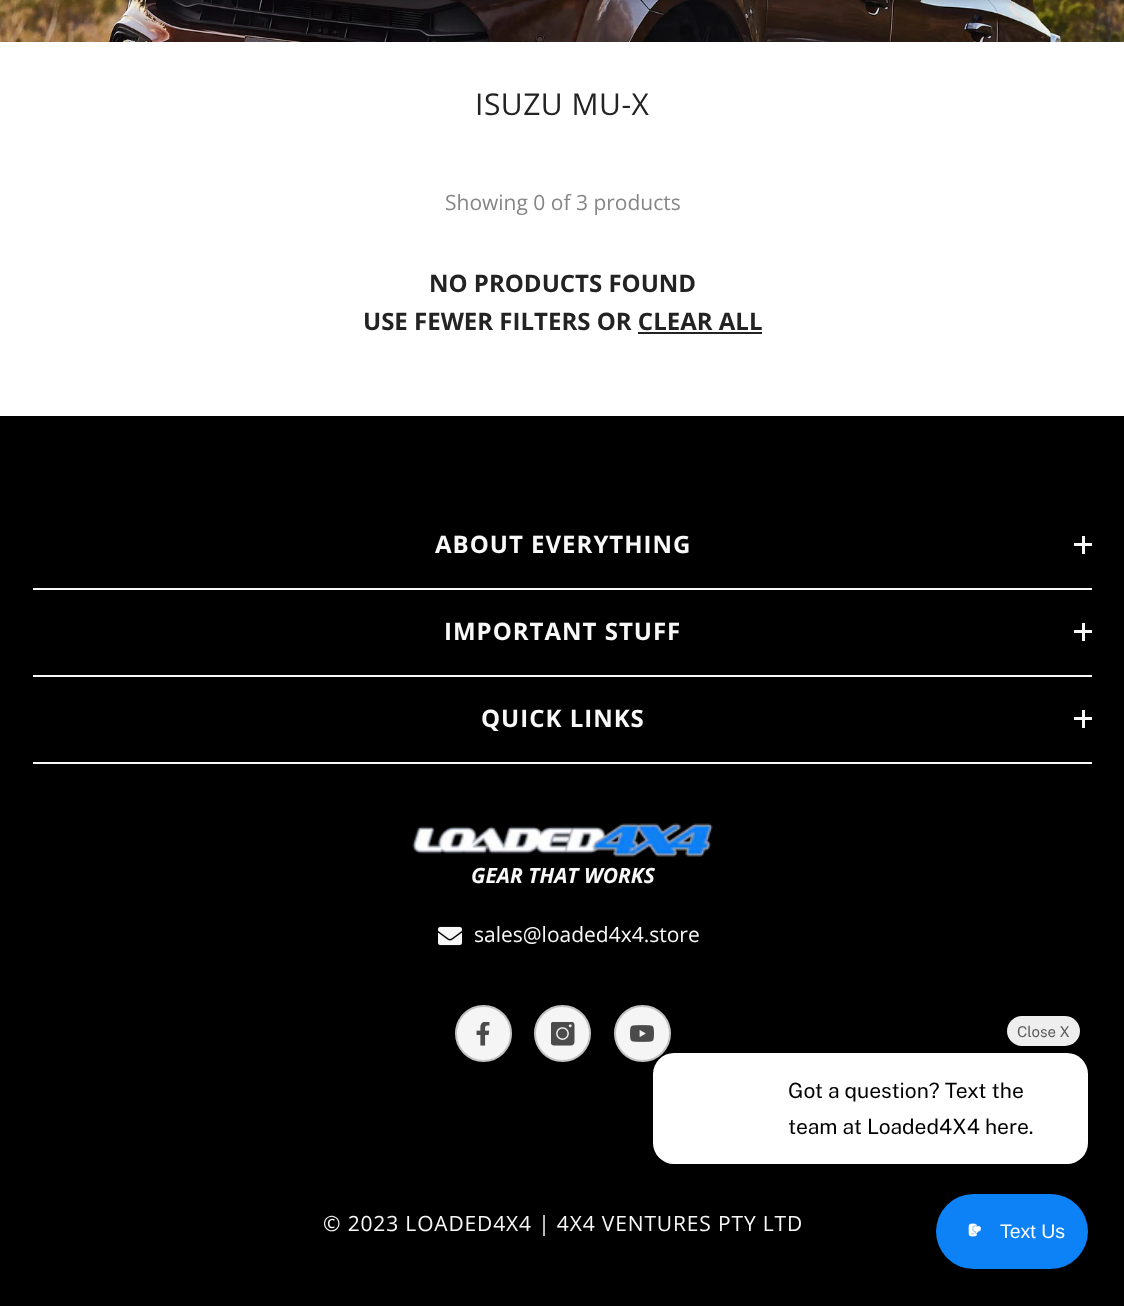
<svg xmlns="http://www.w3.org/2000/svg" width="1124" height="1306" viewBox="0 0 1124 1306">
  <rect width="100%" height="100%" fill="rgb(255,255,255)"/>
  <image x="0" y="0" width="1124" height="42" href="pic1.png"/>
  <rect x="0" y="-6" width="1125" height="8" fill="rgba(0,0,0,0.1)" filter="blur(2px)"/>
  <text x="475" y="115" font-family="Open Sans" font-size="30" letter-spacing="0.5" fill="rgb(35,35,35)">ISUZU MU-X</text>
  <text x="445" y="210" font-family="Open Sans" font-size="21" fill="rgb(134,134,134)">Showing 0 of 3 products</text>
  <g font-family="Open Sans" font-size="24" font-weight="bold" fill="rgb(35,35,35)">
    <text x="429" y="292">NO PRODUCTS FOUND</text>
    <text x="363" y="330">USE FEWER FILTERS OR CLEAR ALL</text>
  </g>
  <rect x="638" y="332" width="124" height="2" fill="rgb(35,35,35)"/>
  <rect x="0" y="416" width="1124" height="890" fill="rgb(0,0,0)"/>
  <rect x="33" y="588" width="1059" height="2" fill="rgb(248,248,248)"/>
  <text x="435" y="553" font-family="Open Sans" font-size="24" font-weight="bold" letter-spacing="1" fill="rgb(248,248,248)">ABOUT EVERYTHING</text>
  <rect x="1082" y="536" width="3" height="18" fill="rgb(248,248,248)"/>
  <rect x="1074" y="543" width="18" height="3" fill="rgb(248,248,248)"/>
  <rect x="33" y="675" width="1059" height="2" fill="rgb(248,248,248)"/>
  <text x="444" y="640" font-family="Open Sans" font-size="24" font-weight="bold" letter-spacing="1" fill="rgb(248,248,248)">IMPORTANT STUFF</text>
  <rect x="1082" y="623" width="3" height="18" fill="rgb(248,248,248)"/>
  <rect x="1074" y="630" width="18" height="3" fill="rgb(248,248,248)"/>
  <rect x="33" y="762" width="1059" height="2" fill="rgb(248,248,248)"/>
  <text x="481" y="727" font-family="Open Sans" font-size="24" font-weight="bold" letter-spacing="1" fill="rgb(248,248,248)">QUICK LINKS</text>
  <rect x="1082" y="710" width="3" height="18" fill="rgb(248,248,248)"/>
  <rect x="1074" y="717" width="18" height="3" fill="rgb(248,248,248)"/>
  <image x="412" y="823" width="301" height="34" href="pic2.png"/>
  <text x="471" y="883" font-family="Open Sans" font-size="21" font-weight="bold" font-style="italic" fill="rgb(248,248,248)">GEAR THAT WORKS</text>
  <image x="438" y="926" width="24" height="20" href="pic3.png"/>
  <text x="474" y="942" font-family="Open Sans" font-size="21" fill="rgb(248,248,248)">sales@loaded4x4.store</text>
  <circle cx="483.5" cy="1033.5" r="27.5" fill="rgb(245,245,245)" stroke="rgb(194,194,194)" stroke-width="2"/>
  <image x="476" y="1022" width="14" height="24" href="pic4.png"/>
  <circle cx="562.5" cy="1033.5" r="27.5" fill="rgb(245,245,245)" stroke="rgb(194,194,194)" stroke-width="2"/>
  <image x="551" y="1022" width="24" height="24" href="pic5.png"/>
  <circle cx="642.5" cy="1033.5" r="27.5" fill="rgb(245,245,245)" stroke="rgb(194,194,194)" stroke-width="2"/>
  <image x="630" y="1025" width="24" height="17" href="pic6.png"/>
  <text x="323" y="1231" font-family="Open Sans" font-size="21" letter-spacing="0.85" fill="rgb(248,248,248)">© 2023 LOADED4X4 | 4X4 VENTURES PTY LTD</text>
  <rect x="653" y="1053" width="435" height="111" rx="21" fill="rgb(255,255,255)"/>
  <rect x="1007" y="1016" width="73" height="30" rx="15" fill="rgb(238,238,238)"/>
  <text x="1017" y="1037" font-family="Public Sans" font-size="15" font-weight="100" fill="rgb(93,93,93)">Close X</text>
  <g font-family="Public Sans" font-size="21" font-weight="100" fill="rgb(0,0,0)">
    <text>
      <tspan x="788" y="1098">Got a question? Text the</tspan>
      <tspan x="788" y="1134">team at Loaded4X4 here.</tspan>
    </text>
  </g>
  <rect x="936" y="1194" width="152" height="75" rx="37.5" fill="rgb(13,129,246)"/>
  <image x="968" y="1223" width="13" height="14" href="pic7.png"/>
  <text x="1000" y="1238" font-family="Liberation Sans" font-size="19.5" fill="rgb(255,255,255)">Text Us</text>
</svg>
